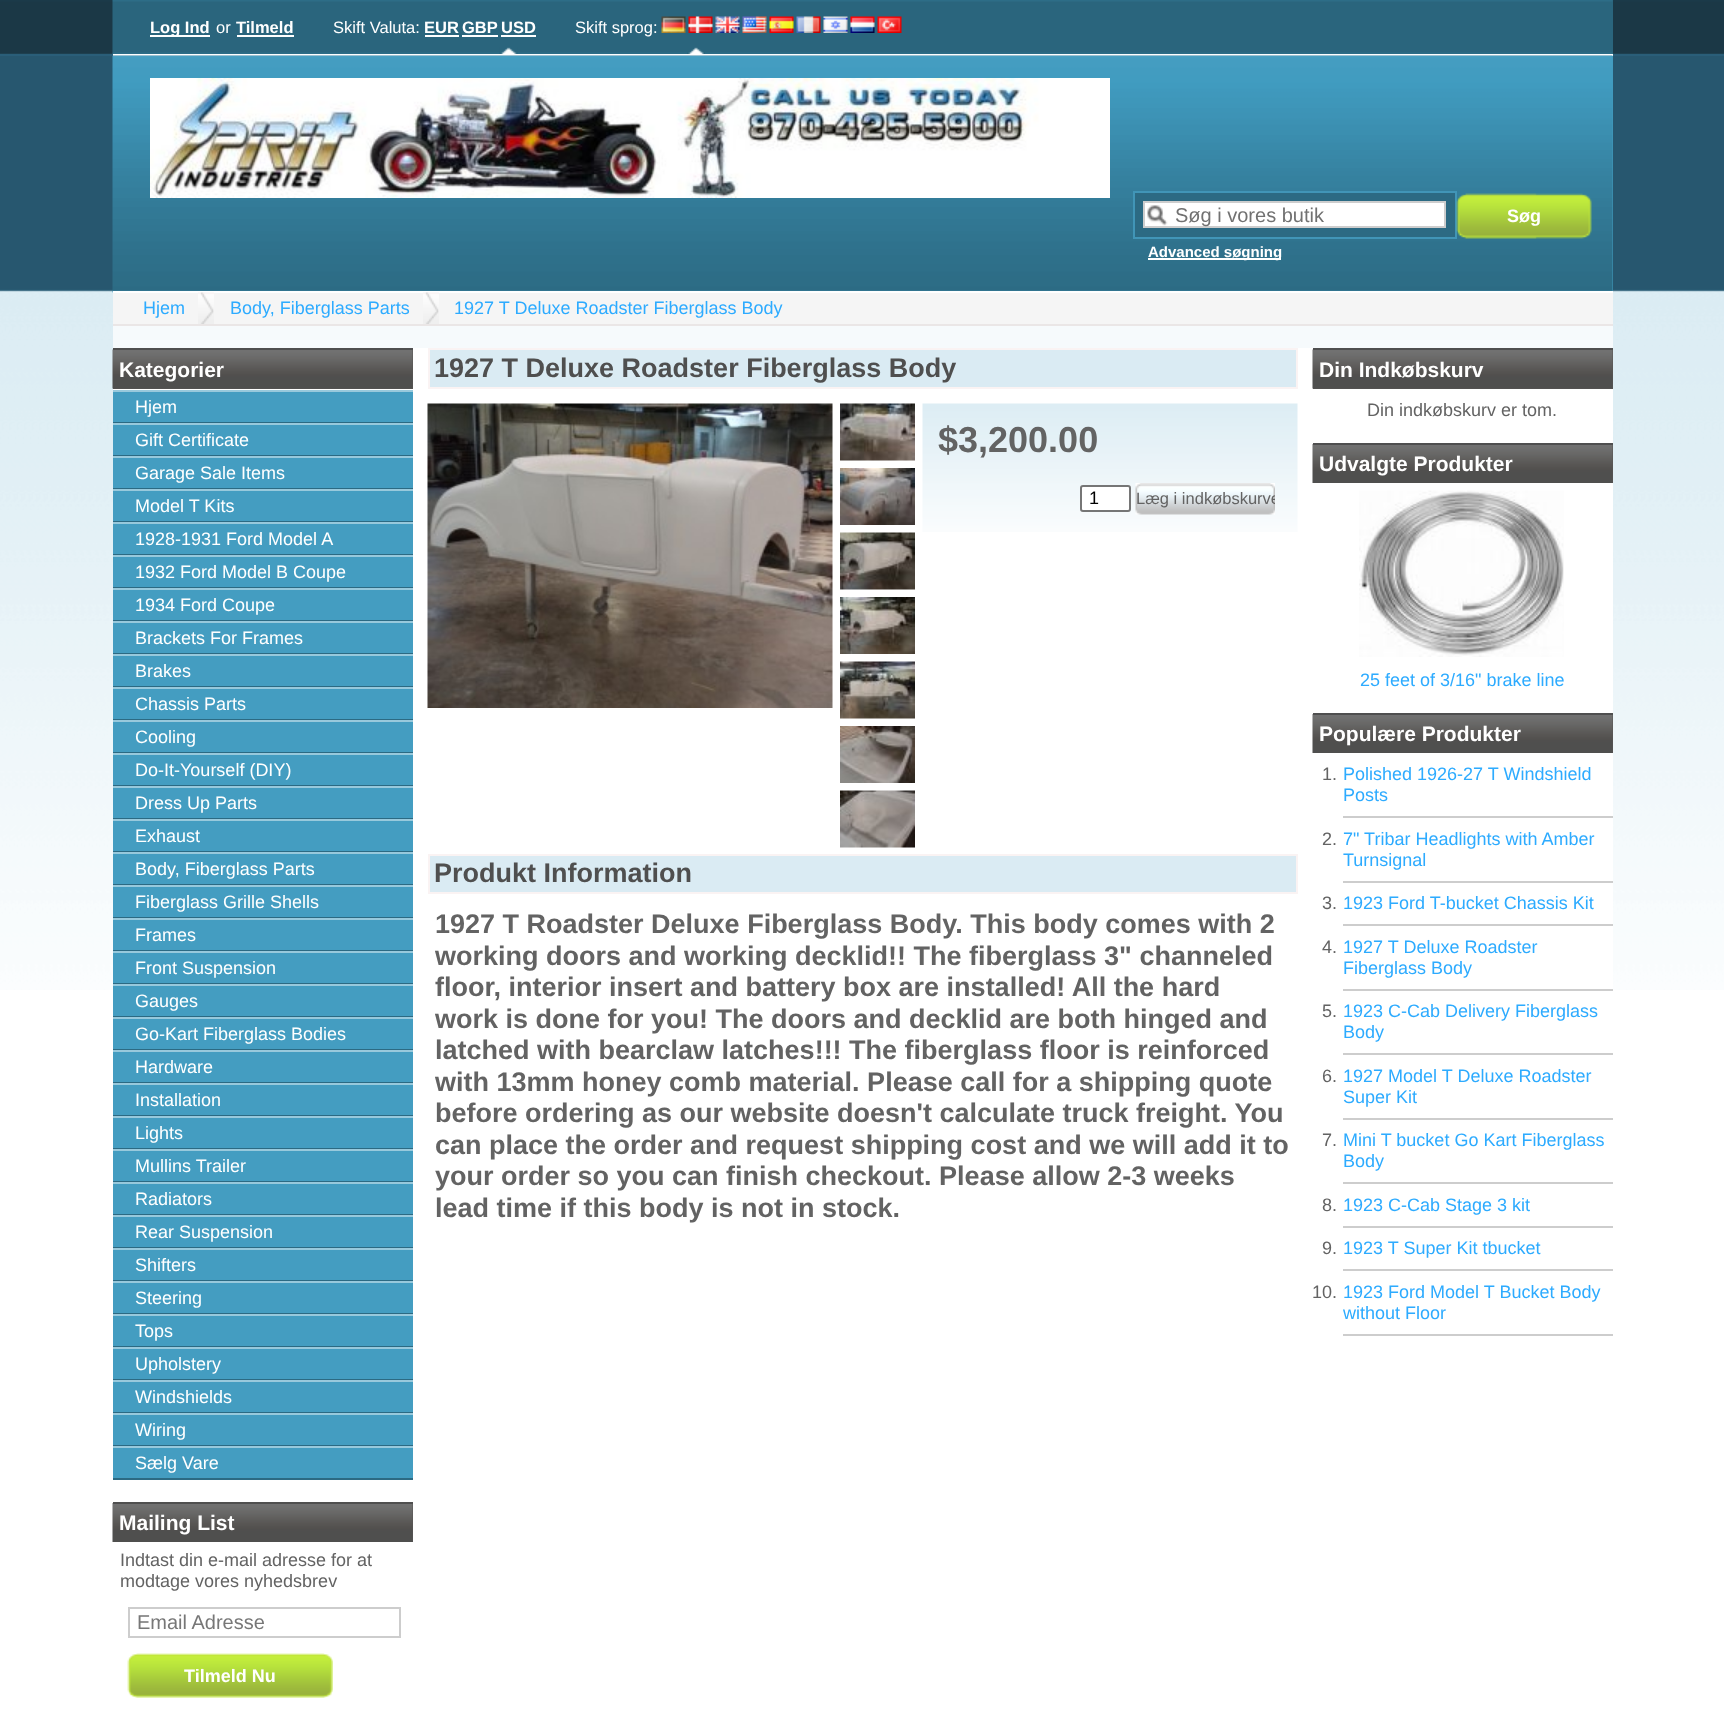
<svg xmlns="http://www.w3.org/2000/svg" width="1724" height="1724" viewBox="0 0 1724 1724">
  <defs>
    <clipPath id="clip1"><rect x="1136" y="483" width="139" height="32"/></clipPath>
  </defs>
  <rect width="100%" height="100%" fill="rgb(255,255,255)"/>
  <image x="0" y="0" width="1724" height="990" href="pic1.png"/>
  <rect x="113" y="326" width="1500" height="22" fill="rgb(246,250,252)"/>
  <rect x="1612" y="0" width="1" height="54" fill="rgb(42,101,125)"/>
  <image x="112" y="0" width="1501" height="55" href="pic2.png"/>
  <rect x="113" y="54" width="1500" height="2" fill="rgb(255,255,255)"/>
  <rect x="150" y="35" width="60" height="2" fill="rgb(255,255,255)"/>
  <text x="150" y="33" font-family="Liberation Sans" font-size="16.5" font-weight="bold" fill="rgb(255,255,255)">Log Ind</text>
  <text x="216" y="33" font-family="Liberation Sans" font-size="16.5" fill="rgb(255,255,255)">or</text>
  <text x="236" y="33" font-family="Liberation Sans" font-size="16.5" font-weight="bold" fill="rgb(255,255,255)">Tilmeld</text>
  <rect x="237" y="35" width="57" height="2" fill="rgb(255,255,255)"/>
  <text x="333" y="33" font-family="Liberation Sans" font-size="16.5" fill="rgb(255,255,255)">Skift Valuta:</text>
  <text x="424" y="33" font-family="Liberation Sans" font-size="16.5" font-weight="bold" fill="rgb(255,255,255)">EUR</text>
  <rect x="425" y="35" width="34" height="2" fill="rgb(255,255,255)"/>
  <text x="462" y="33" font-family="Liberation Sans" font-size="16.5" font-weight="bold" fill="rgb(255,255,255)">GBP</text>
  <rect x="462" y="35" width="36" height="2" fill="rgb(255,255,255)"/>
  <image x="499" y="47" width="19" height="7" href="pic3.png"/>
  <text x="501" y="33" font-family="Liberation Sans" font-size="16.5" font-weight="bold" fill="rgb(255,255,255)">USD</text>
  <rect x="501" y="35" width="35" height="2" fill="rgb(255,255,255)"/>
  <text x="575" y="33" font-family="Liberation Sans" font-size="16.5" fill="rgb(255,255,255)">Skift sprog:</text>
  <image x="661" y="16" width="25" height="17" href="pic4.png"/>
  <image x="687" y="47" width="18" height="7" href="pic5.png"/>
  <image x="688" y="16" width="25" height="17" href="pic6.png"/>
  <image x="715" y="16" width="25" height="17" href="pic7.png"/>
  <image x="742" y="16" width="25" height="17" href="pic8.png"/>
  <image x="769" y="16" width="25" height="17" href="pic9.png"/>
  <image x="796" y="16" width="25" height="17" href="pic10.png"/>
  <image x="823" y="16" width="25" height="17" href="pic11.png"/>
  <image x="850" y="16" width="25" height="17" href="pic12.png"/>
  <image x="877" y="16" width="25" height="17" href="pic13.png"/>
  <rect x="1612" y="56" width="1" height="235" fill="rgb(64,155,191)"/>
  <image x="112" y="55" width="1501" height="238" href="pic14.png"/>
  <rect x="113" y="291" width="1500" height="2" fill="rgb(255,255,255)"/>
  <image x="150" y="78" width="960" height="120" href="pic15.png"/>
  <rect x="1134" y="192" width="322" height="46" fill="rgb(44,106,131)" stroke="rgb(65,149,183)" stroke-width="2"/>
  <rect x="1145" y="203" width="299" height="23" fill="rgb(255,255,255)"/>
  <image x="1147" y="205" width="21" height="21" href="pic16.png"/>
  <rect x="1144" y="202" width="301" height="25" fill="none" stroke="rgb(205,205,205)" stroke-width="2"/>
  <text x="1175" y="222" font-family="Liberation Sans" font-size="20" fill="rgb(113,113,113)">Søg i vores butik</text>
  <image x="1456" y="193" width="136" height="46" href="pic17.png"/>
  <text x="1507" y="222" font-family="Liberation Sans" font-size="18" font-weight="bold" fill="rgb(255,255,255)">Søg</text>
  <rect x="1148" y="258" width="133" height="2" fill="rgb(255,255,255)"/>
  <text x="1148" y="257" font-family="Liberation Sans" font-size="15" font-weight="bold" fill="rgb(255,255,255)">Advanced søgning</text>
  <rect x="113" y="293" width="1500" height="31" fill="rgb(245,245,245)"/>
  <rect x="113" y="324" width="1500" height="2" fill="rgb(234,230,230)"/>
  <image x="198" y="292" width="16" height="32" href="pic18.png"/>
  <text x="143" y="314" font-family="Liberation Sans" font-size="18" fill="rgb(45,171,255)">Hjem</text>
  <image x="423" y="292" width="16" height="32" href="pic19.png"/>
  <g font-family="Liberation Sans" font-size="18" fill="rgb(45,171,255)">
    <text x="230" y="314">Body, Fiberglass Parts</text>
    <text x="454" y="314">1927 T Deluxe Roadster Fiberglass Body</text>
  </g>
  <rect x="113" y="348" width="1500" height="642" fill="rgb(255,255,255)"/>
  <rect x="113" y="350" width="300" height="39" fill="rgb(89,87,85)"/>
  <image x="112" y="349" width="301" height="40" href="pic20.png"/>
  <rect x="113" y="348" width="300" height="2" fill="rgb(79,79,79)"/>
  <text x="119" y="377" font-family="Liberation Sans" font-size="21" font-weight="bold" fill="rgb(255,255,255)">Kategorier</text>
  <rect x="113" y="392" width="300" height="30" fill="rgb(68,157,193)"/>
  <rect x="113" y="390" width="300" height="2" fill="rgb(152,201,220)"/>
  <rect x="113" y="422" width="300" height="1" fill="rgb(44,106,131)"/>
  <text x="135" y="413" font-family="Liberation Sans" font-size="18" fill="rgb(255,255,255)">Hjem</text>
  <rect x="113" y="425" width="300" height="30" fill="rgb(68,157,193)"/>
  <rect x="113" y="423" width="300" height="2" fill="rgb(152,201,220)"/>
  <rect x="113" y="455" width="300" height="1" fill="rgb(44,106,131)"/>
  <text x="135" y="446" font-family="Liberation Sans" font-size="18" fill="rgb(255,255,255)">Gift Certificate</text>
  <rect x="113" y="458" width="300" height="30" fill="rgb(68,157,193)"/>
  <rect x="113" y="456" width="300" height="2" fill="rgb(152,201,220)"/>
  <rect x="113" y="488" width="300" height="1" fill="rgb(44,106,131)"/>
  <text x="135" y="479" font-family="Liberation Sans" font-size="18" fill="rgb(255,255,255)">Garage Sale Items</text>
  <rect x="113" y="491" width="300" height="30" fill="rgb(68,157,193)"/>
  <rect x="113" y="489" width="300" height="2" fill="rgb(152,201,220)"/>
  <rect x="113" y="521" width="300" height="1" fill="rgb(44,106,131)"/>
  <text x="135" y="512" font-family="Liberation Sans" font-size="18" fill="rgb(255,255,255)">Model T Kits</text>
  <rect x="113" y="524" width="300" height="30" fill="rgb(68,157,193)"/>
  <rect x="113" y="522" width="300" height="2" fill="rgb(152,201,220)"/>
  <rect x="113" y="554" width="300" height="1" fill="rgb(44,106,131)"/>
  <text x="135" y="545" font-family="Liberation Sans" font-size="18" fill="rgb(255,255,255)">1928-1931 Ford Model A</text>
  <rect x="113" y="557" width="300" height="30" fill="rgb(68,157,193)"/>
  <rect x="113" y="555" width="300" height="2" fill="rgb(152,201,220)"/>
  <rect x="113" y="587" width="300" height="1" fill="rgb(44,106,131)"/>
  <text x="135" y="578" font-family="Liberation Sans" font-size="18" fill="rgb(255,255,255)">1932 Ford Model B Coupe</text>
  <rect x="113" y="590" width="300" height="30" fill="rgb(68,157,193)"/>
  <rect x="113" y="588" width="300" height="2" fill="rgb(152,201,220)"/>
  <rect x="113" y="620" width="300" height="1" fill="rgb(44,106,131)"/>
  <text x="135" y="611" font-family="Liberation Sans" font-size="18" fill="rgb(255,255,255)">1934 Ford Coupe</text>
  <rect x="113" y="623" width="300" height="30" fill="rgb(68,157,193)"/>
  <rect x="113" y="621" width="300" height="2" fill="rgb(152,201,220)"/>
  <rect x="113" y="653" width="300" height="1" fill="rgb(44,106,131)"/>
  <text x="135" y="644" font-family="Liberation Sans" font-size="18" fill="rgb(255,255,255)">Brackets For Frames</text>
  <rect x="113" y="656" width="300" height="30" fill="rgb(68,157,193)"/>
  <rect x="113" y="654" width="300" height="2" fill="rgb(152,201,220)"/>
  <rect x="113" y="686" width="300" height="1" fill="rgb(44,106,131)"/>
  <text x="135" y="677" font-family="Liberation Sans" font-size="18" fill="rgb(255,255,255)">Brakes</text>
  <rect x="113" y="689" width="300" height="30" fill="rgb(68,157,193)"/>
  <rect x="113" y="687" width="300" height="2" fill="rgb(152,201,220)"/>
  <rect x="113" y="719" width="300" height="1" fill="rgb(44,106,131)"/>
  <text x="135" y="710" font-family="Liberation Sans" font-size="18" fill="rgb(255,255,255)">Chassis Parts</text>
  <rect x="113" y="722" width="300" height="30" fill="rgb(68,157,193)"/>
  <rect x="113" y="720" width="300" height="2" fill="rgb(152,201,220)"/>
  <rect x="113" y="752" width="300" height="1" fill="rgb(44,106,131)"/>
  <text x="135" y="743" font-family="Liberation Sans" font-size="18" fill="rgb(255,255,255)">Cooling</text>
  <rect x="113" y="755" width="300" height="30" fill="rgb(68,157,193)"/>
  <rect x="113" y="753" width="300" height="2" fill="rgb(152,201,220)"/>
  <rect x="113" y="785" width="300" height="1" fill="rgb(44,106,131)"/>
  <text x="135" y="776" font-family="Liberation Sans" font-size="18" fill="rgb(255,255,255)">Do-It-Yourself (DIY)</text>
  <rect x="113" y="788" width="300" height="30" fill="rgb(68,157,193)"/>
  <rect x="113" y="786" width="300" height="2" fill="rgb(152,201,220)"/>
  <rect x="113" y="818" width="300" height="1" fill="rgb(44,106,131)"/>
  <text x="135" y="809" font-family="Liberation Sans" font-size="18" fill="rgb(255,255,255)">Dress Up Parts</text>
  <rect x="113" y="821" width="300" height="30" fill="rgb(68,157,193)"/>
  <rect x="113" y="819" width="300" height="2" fill="rgb(152,201,220)"/>
  <rect x="113" y="851" width="300" height="1" fill="rgb(44,106,131)"/>
  <text x="135" y="842" font-family="Liberation Sans" font-size="18" fill="rgb(255,255,255)">Exhaust</text>
  <rect x="113" y="854" width="300" height="30" fill="rgb(68,157,193)"/>
  <rect x="113" y="852" width="300" height="2" fill="rgb(152,201,220)"/>
  <rect x="113" y="884" width="300" height="1" fill="rgb(44,106,131)"/>
  <text x="135" y="875" font-family="Liberation Sans" font-size="18" fill="rgb(255,255,255)">Body, Fiberglass Parts</text>
  <rect x="113" y="887" width="300" height="30" fill="rgb(68,157,193)"/>
  <rect x="113" y="885" width="300" height="2" fill="rgb(152,201,220)"/>
  <rect x="113" y="917" width="300" height="1" fill="rgb(44,106,131)"/>
  <text x="135" y="908" font-family="Liberation Sans" font-size="18" fill="rgb(255,255,255)">Fiberglass Grille Shells</text>
  <rect x="113" y="920" width="300" height="30" fill="rgb(68,157,193)"/>
  <rect x="113" y="918" width="300" height="2" fill="rgb(152,201,220)"/>
  <rect x="113" y="950" width="300" height="1" fill="rgb(44,106,131)"/>
  <text x="135" y="941" font-family="Liberation Sans" font-size="18" fill="rgb(255,255,255)">Frames</text>
  <rect x="113" y="953" width="300" height="30" fill="rgb(68,157,193)"/>
  <rect x="113" y="951" width="300" height="2" fill="rgb(152,201,220)"/>
  <rect x="113" y="983" width="300" height="1" fill="rgb(44,106,131)"/>
  <text x="135" y="974" font-family="Liberation Sans" font-size="18" fill="rgb(255,255,255)">Front Suspension</text>
  <rect x="113" y="986" width="300" height="30" fill="rgb(68,157,193)"/>
  <rect x="113" y="984" width="300" height="2" fill="rgb(152,201,220)"/>
  <rect x="113" y="1016" width="300" height="1" fill="rgb(44,106,131)"/>
  <text x="135" y="1007" font-family="Liberation Sans" font-size="18" fill="rgb(255,255,255)">Gauges</text>
  <rect x="113" y="1019" width="300" height="30" fill="rgb(68,157,193)"/>
  <rect x="113" y="1017" width="300" height="2" fill="rgb(152,201,220)"/>
  <rect x="113" y="1049" width="300" height="1" fill="rgb(44,106,131)"/>
  <text x="135" y="1040" font-family="Liberation Sans" font-size="18" fill="rgb(255,255,255)">Go-Kart Fiberglass Bodies</text>
  <rect x="113" y="1052" width="300" height="30" fill="rgb(68,157,193)"/>
  <rect x="113" y="1050" width="300" height="2" fill="rgb(152,201,220)"/>
  <rect x="113" y="1082" width="300" height="1" fill="rgb(44,106,131)"/>
  <text x="135" y="1073" font-family="Liberation Sans" font-size="18" fill="rgb(255,255,255)">Hardware</text>
  <rect x="113" y="1085" width="300" height="30" fill="rgb(68,157,193)"/>
  <rect x="113" y="1083" width="300" height="2" fill="rgb(152,201,220)"/>
  <rect x="113" y="1115" width="300" height="1" fill="rgb(44,106,131)"/>
  <text x="135" y="1106" font-family="Liberation Sans" font-size="18" fill="rgb(255,255,255)">Installation</text>
  <rect x="113" y="1118" width="300" height="30" fill="rgb(68,157,193)"/>
  <rect x="113" y="1116" width="300" height="2" fill="rgb(152,201,220)"/>
  <rect x="113" y="1148" width="300" height="1" fill="rgb(44,106,131)"/>
  <text x="135" y="1139" font-family="Liberation Sans" font-size="18" fill="rgb(255,255,255)">Lights</text>
  <rect x="113" y="1151" width="300" height="30" fill="rgb(68,157,193)"/>
  <rect x="113" y="1149" width="300" height="2" fill="rgb(152,201,220)"/>
  <rect x="113" y="1181" width="300" height="1" fill="rgb(44,106,131)"/>
  <text x="135" y="1172" font-family="Liberation Sans" font-size="18" fill="rgb(255,255,255)">Mullins Trailer</text>
  <rect x="113" y="1184" width="300" height="30" fill="rgb(68,157,193)"/>
  <rect x="113" y="1182" width="300" height="2" fill="rgb(152,201,220)"/>
  <rect x="113" y="1214" width="300" height="1" fill="rgb(44,106,131)"/>
  <text x="135" y="1205" font-family="Liberation Sans" font-size="18" fill="rgb(255,255,255)">Radiators</text>
  <rect x="113" y="1217" width="300" height="30" fill="rgb(68,157,193)"/>
  <rect x="113" y="1215" width="300" height="2" fill="rgb(152,201,220)"/>
  <rect x="113" y="1247" width="300" height="1" fill="rgb(44,106,131)"/>
  <text x="135" y="1238" font-family="Liberation Sans" font-size="18" fill="rgb(255,255,255)">Rear Suspension</text>
  <rect x="113" y="1250" width="300" height="30" fill="rgb(68,157,193)"/>
  <rect x="113" y="1248" width="300" height="2" fill="rgb(152,201,220)"/>
  <rect x="113" y="1280" width="300" height="1" fill="rgb(44,106,131)"/>
  <text x="135" y="1271" font-family="Liberation Sans" font-size="18" fill="rgb(255,255,255)">Shifters</text>
  <rect x="113" y="1283" width="300" height="30" fill="rgb(68,157,193)"/>
  <rect x="113" y="1281" width="300" height="2" fill="rgb(152,201,220)"/>
  <rect x="113" y="1313" width="300" height="1" fill="rgb(44,106,131)"/>
  <text x="135" y="1304" font-family="Liberation Sans" font-size="18" fill="rgb(255,255,255)">Steering</text>
  <rect x="113" y="1316" width="300" height="30" fill="rgb(68,157,193)"/>
  <rect x="113" y="1314" width="300" height="2" fill="rgb(152,201,220)"/>
  <rect x="113" y="1346" width="300" height="1" fill="rgb(44,106,131)"/>
  <text x="135" y="1337" font-family="Liberation Sans" font-size="18" fill="rgb(255,255,255)">Tops</text>
  <rect x="113" y="1349" width="300" height="30" fill="rgb(68,157,193)"/>
  <rect x="113" y="1347" width="300" height="2" fill="rgb(152,201,220)"/>
  <rect x="113" y="1379" width="300" height="1" fill="rgb(44,106,131)"/>
  <text x="135" y="1370" font-family="Liberation Sans" font-size="18" fill="rgb(255,255,255)">Upholstery</text>
  <rect x="113" y="1382" width="300" height="30" fill="rgb(68,157,193)"/>
  <rect x="113" y="1380" width="300" height="2" fill="rgb(152,201,220)"/>
  <rect x="113" y="1412" width="300" height="1" fill="rgb(44,106,131)"/>
  <text x="135" y="1403" font-family="Liberation Sans" font-size="18" fill="rgb(255,255,255)">Windshields</text>
  <rect x="113" y="1415" width="300" height="30" fill="rgb(68,157,193)"/>
  <rect x="113" y="1413" width="300" height="2" fill="rgb(152,201,220)"/>
  <rect x="113" y="1445" width="300" height="1" fill="rgb(44,106,131)"/>
  <text x="135" y="1436" font-family="Liberation Sans" font-size="18" fill="rgb(255,255,255)">Wiring</text>
  <rect x="113" y="1448" width="300" height="30" fill="rgb(68,157,193)"/>
  <rect x="113" y="1446" width="300" height="2" fill="rgb(152,201,220)"/>
  <rect x="113" y="1478" width="300" height="2" fill="rgb(44,106,131)"/>
  <text x="135" y="1469" font-family="Liberation Sans" font-size="18" fill="rgb(255,255,255)">Sælg Vare</text>
  <rect x="412" y="1504" width="1" height="38" fill="rgb(89,87,85)"/>
  <image x="112" y="1503" width="301" height="39" href="pic21.png"/>
  <rect x="113" y="1502" width="300" height="2" fill="rgb(79,79,79)"/>
  <text x="119" y="1530" font-family="Liberation Sans" font-size="21" font-weight="bold" fill="rgb(255,255,255)">Mailing List</text>
  <g font-family="Liberation Sans" font-size="18" fill="rgb(99,99,99)">
    <text>
      <tspan x="120" y="1566">Indtast din e-mail adresse for at</tspan>
      <tspan x="120" y="1587">modtage vores nyhedsbrev</tspan>
    </text>
  </g>
  <rect x="129" y="1608" width="271" height="29" fill="none" stroke="rgb(205,205,205)" stroke-width="2"/>
  <text x="137" y="1629" font-family="Liberation Sans" font-size="20" fill="rgb(119,119,119)">Email Adresse</text>
  <image x="127" y="1653" width="206" height="45" href="pic22.png"/>
  <text x="184" y="1682" font-family="Liberation Sans" font-size="18" font-weight="bold" fill="rgb(255,255,255)">Tilmeld Nu</text>
  <rect x="429" y="349" width="868" height="39" fill="rgb(218,235,243)" stroke="rgb(250,243,243)" stroke-width="2"/>
  <text x="434" y="377" font-family="Liberation Sans" font-size="27" font-weight="bold" fill="rgb(79,79,79)">1927 T Deluxe Roadster Fiberglass Body</text>
  <image x="427" y="403" width="406" height="305" href="pic23.png"/>
  <image x="840" y="403" width="75" height="58" href="pic24.png"/>
  <image x="840" y="468" width="75" height="57" href="pic25.png"/>
  <image x="840" y="532" width="75" height="58" href="pic26.png"/>
  <image x="840" y="597" width="75" height="57" href="pic27.png"/>
  <image x="840" y="661" width="75" height="58" href="pic28.png"/>
  <image x="840" y="726" width="75" height="57" href="pic29.png"/>
  <image x="840" y="790" width="75" height="58" href="pic30.png"/>
  <image x="922" y="403" width="376" height="129" href="pic31.png"/>
  <text x="938" y="452" font-family="Liberation Sans" font-size="36" font-weight="bold" fill="rgb(99,99,99)">$3,200.00</text>
  <rect x="1081" y="486" width="49" height="25" rx="2" fill="rgb(255,255,255)" stroke="rgb(118,118,118)" stroke-width="2"/>
  <text x="1089" y="504" font-family="Liberation Sans" font-size="18" fill="rgb(0,0,0)">1</text>
  <image x="1135" y="483" width="140" height="32" href="pic32.png"/>
  <g clip-path="url(#clip1)">
    <text x="1136" y="504" font-family="Liberation Sans" font-size="16.5" fill="rgb(99,99,99)">Læg i indkøbskurve</text>
  </g>
  <rect x="429" y="855" width="868" height="38" fill="rgb(218,235,243)" stroke="rgb(250,243,243)" stroke-width="2"/>
  <text x="434" y="882" font-family="Liberation Sans" font-size="27" font-weight="bold" fill="rgb(79,79,79)">Produkt Information</text>
  <g font-family="Liberation Sans" font-size="27" font-weight="bold" fill="rgb(99,99,99)">
    <text>
      <tspan x="435" y="933">1927 T Roadster Deluxe Fiberglass Body. This body comes with 2</tspan>
      <tspan x="435" y="965">working doors and working decklid!! The fiberglass 3" channeled</tspan>
      <tspan x="435" y="996">floor, interior insert and battery box are installed! All the hard</tspan>
      <tspan x="435" y="1028">work is done for you! The doors and decklid are both hinged and</tspan>
      <tspan x="435" y="1059">latched with bearclaw latches!!! The fiberglass floor is reinforced</tspan>
      <tspan x="435" y="1091">with 13mm honey comb material. Please call for a shipping quote</tspan>
      <tspan x="435" y="1122">before ordering as our website doesn't calculate truck freight. You</tspan>
      <tspan x="435" y="1154">can place the order and request shipping cost and we will add it to</tspan>
      <tspan x="435" y="1185">your order so you can finish checkout. Please allow 2-3 weeks</tspan>
      <tspan x="435" y="1217">lead time if this body is not in stock.</tspan>
    </text>
  </g>
  <rect x="1313" y="350" width="300" height="39" fill="rgb(89,87,85)"/>
  <image x="1312" y="349" width="301" height="40" href="pic33.png"/>
  <rect x="1313" y="348" width="300" height="2" fill="rgb(79,79,79)"/>
  <text x="1319" y="377" font-family="Liberation Sans" font-size="21" font-weight="bold" fill="rgb(255,255,255)">Din Indkøbskurv</text>
  <text x="1367" y="416" font-family="Liberation Sans" font-size="18" fill="rgb(99,99,99)">Din indkøbskurv er tom.</text>
  <rect x="1612" y="445" width="1" height="38" fill="rgb(89,87,85)"/>
  <image x="1312" y="444" width="301" height="39" href="pic21.png"/>
  <rect x="1313" y="443" width="300" height="2" fill="rgb(79,79,79)"/>
  <text x="1319" y="471" font-family="Liberation Sans" font-size="21" font-weight="bold" fill="rgb(255,255,255)">Udvalgte Produkter</text>
  <image x="1359" y="490" width="205" height="167" href="pic34.png"/>
  <text x="1360" y="686" font-family="Liberation Sans" font-size="18" fill="rgb(45,171,255)">25 feet of 3/16" brake line</text>
  <rect x="1612" y="715" width="1" height="38" fill="rgb(89,87,85)"/>
  <image x="1312" y="714" width="301" height="39" href="pic21.png"/>
  <rect x="1313" y="713" width="300" height="2" fill="rgb(79,79,79)"/>
  <text x="1319" y="741" font-family="Liberation Sans" font-size="21" font-weight="bold" fill="rgb(255,255,255)">Populære Produkter</text>
  <rect x="1343" y="816" width="270" height="2" fill="rgb(205,205,205)"/>
  <text x="1322" y="780" font-family="Liberation Sans" font-size="18" fill="rgb(99,99,99)">1.</text>
  <g font-family="Liberation Sans" font-size="18" fill="rgb(45,171,255)">
    <text>
      <tspan x="1343" y="780">Polished 1926-27 T Windshield</tspan>
      <tspan x="1343" y="801">Posts</tspan>
    </text>
  </g>
  <rect x="1343" y="881" width="270" height="2" fill="rgb(205,205,205)"/>
  <text x="1322" y="845" font-family="Liberation Sans" font-size="18" fill="rgb(99,99,99)">2.</text>
  <g font-family="Liberation Sans" font-size="18" fill="rgb(45,171,255)">
    <text>
      <tspan x="1343" y="845">7" Tribar Headlights with Amber</tspan>
      <tspan x="1343" y="866">Turnsignal</tspan>
    </text>
  </g>
  <rect x="1343" y="924" width="270" height="2" fill="rgb(205,205,205)"/>
  <text x="1322" y="909" font-family="Liberation Sans" font-size="18" fill="rgb(99,99,99)">3.</text>
  <text x="1343" y="909" font-family="Liberation Sans" font-size="18" fill="rgb(45,171,255)">1923 Ford T-bucket Chassis Kit</text>
  <rect x="1343" y="989" width="270" height="2" fill="rgb(205,205,205)"/>
  <text x="1322" y="953" font-family="Liberation Sans" font-size="18" fill="rgb(99,99,99)">4.</text>
  <g font-family="Liberation Sans" font-size="18" fill="rgb(45,171,255)">
    <text>
      <tspan x="1343" y="953">1927 T Deluxe Roadster</tspan>
      <tspan x="1343" y="974">Fiberglass Body</tspan>
    </text>
  </g>
  <rect x="1343" y="1053" width="270" height="2" fill="rgb(205,205,205)"/>
  <text x="1322" y="1017" font-family="Liberation Sans" font-size="18" fill="rgb(99,99,99)">5.</text>
  <g font-family="Liberation Sans" font-size="18" fill="rgb(45,171,255)">
    <text>
      <tspan x="1343" y="1017">1923 C-Cab Delivery Fiberglass</tspan>
      <tspan x="1343" y="1038">Body</tspan>
    </text>
  </g>
  <rect x="1343" y="1118" width="270" height="2" fill="rgb(205,205,205)"/>
  <text x="1322" y="1082" font-family="Liberation Sans" font-size="18" fill="rgb(99,99,99)">6.</text>
  <g font-family="Liberation Sans" font-size="18" fill="rgb(45,171,255)">
    <text>
      <tspan x="1343" y="1082">1927 Model T Deluxe Roadster</tspan>
      <tspan x="1343" y="1103">Super Kit</tspan>
    </text>
  </g>
  <rect x="1343" y="1182" width="270" height="2" fill="rgb(205,205,205)"/>
  <text x="1322" y="1146" font-family="Liberation Sans" font-size="18" fill="rgb(99,99,99)">7.</text>
  <g font-family="Liberation Sans" font-size="18" fill="rgb(45,171,255)">
    <text>
      <tspan x="1343" y="1146">Mini T bucket Go Kart Fiberglass</tspan>
      <tspan x="1343" y="1167">Body</tspan>
    </text>
  </g>
  <rect x="1343" y="1226" width="270" height="2" fill="rgb(205,205,205)"/>
  <text x="1322" y="1211" font-family="Liberation Sans" font-size="18" fill="rgb(99,99,99)">8.</text>
  <text x="1343" y="1211" font-family="Liberation Sans" font-size="18" fill="rgb(45,171,255)">1923 C-Cab Stage 3 kit</text>
  <rect x="1343" y="1269" width="270" height="2" fill="rgb(205,205,205)"/>
  <text x="1322" y="1254" font-family="Liberation Sans" font-size="18" fill="rgb(99,99,99)">9.</text>
  <text x="1343" y="1254" font-family="Liberation Sans" font-size="18" fill="rgb(45,171,255)">1923 T Super Kit tbucket</text>
  <rect x="1343" y="1334" width="270" height="2" fill="rgb(205,205,205)"/>
  <text x="1312" y="1298" font-family="Liberation Sans" font-size="18" fill="rgb(99,99,99)">10.</text>
  <g font-family="Liberation Sans" font-size="18" fill="rgb(45,171,255)">
    <text>
      <tspan x="1343" y="1298">1923 Ford Model T Bucket Body</tspan>
      <tspan x="1343" y="1319">without Floor</tspan>
    </text>
  </g>
</svg>
